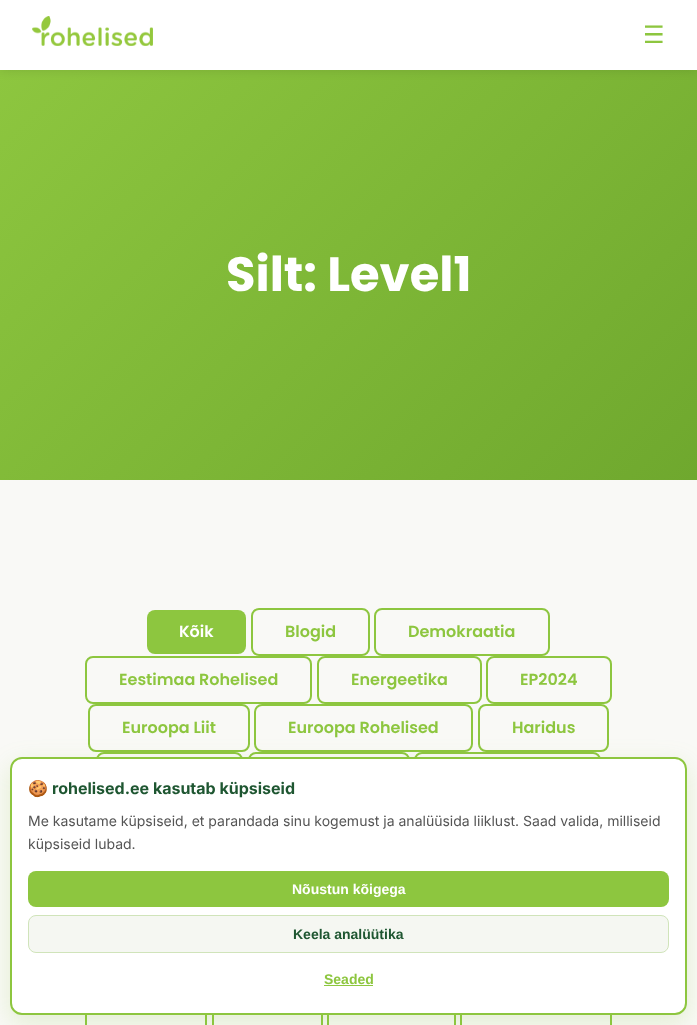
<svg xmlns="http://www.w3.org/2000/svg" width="697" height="1025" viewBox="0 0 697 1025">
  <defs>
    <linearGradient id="g1" gradientUnits="userSpaceOnUse" x1="72" y1="-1.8" x2="625" y2="552"><stop offset="0" stop-color="rgb(141,198,63)"/><stop offset="1" stop-color="rgb(111,168,46)"/></linearGradient>
  </defs>
  <rect width="100%" height="100%" fill="rgb(249,249,246)"/>
  <rect x="0" y="70" width="697" height="410" fill="url(#g1)"/>
  <rect x="0" y="2" width="697" height="70" fill="rgba(0,0,0,0.08)" filter="blur(4px)"/>
  <rect x="0" y="0" width="697" height="70" fill="rgb(255,255,255)"/>
  <image x="32" y="16" width="121" height="30" href="pic1.png"/>
  <text x="643" y="43" font-family="DejaVu Sans" font-size="24" fill="rgb(141,198,63)">☰</text>
  <text x="226" y="291" font-family="Poppins" font-size="48" font-weight="bold" fill="rgb(255,255,255)">Silt: Level1</text>
  <rect x="147" y="610" width="99" height="44" rx="8" fill="rgb(141,198,63)"/>
  <text x="179" y="637" font-family="Poppins" font-size="16" font-weight="600" fill="rgb(255,255,255)">Kõik</text>
  <rect x="252" y="609" width="117" height="46" rx="7" fill="none" stroke="rgb(141,198,63)" stroke-width="2"/>
  <text x="285" y="637" font-family="Poppins" font-size="16" font-weight="600" fill="rgb(141,198,63)">Blogid</text>
  <rect x="375" y="609" width="174" height="46" rx="7" fill="none" stroke="rgb(141,198,63)" stroke-width="2"/>
  <text x="408" y="637" font-family="Poppins" font-size="16" font-weight="600" fill="rgb(141,198,63)">Demokraatia</text>
  <rect x="86" y="657" width="225" height="46" rx="7" fill="none" stroke="rgb(141,198,63)" stroke-width="2"/>
  <text x="119" y="685" font-family="Poppins" font-size="16" font-weight="600" fill="rgb(141,198,63)">Eestimaa Rohelised</text>
  <rect x="318" y="657" width="163" height="46" rx="7" fill="none" stroke="rgb(141,198,63)" stroke-width="2"/>
  <text x="351" y="685" font-family="Poppins" font-size="16" font-weight="600" fill="rgb(141,198,63)">Energeetika</text>
  <rect x="487" y="657" width="124" height="46" rx="7" fill="none" stroke="rgb(141,198,63)" stroke-width="2"/>
  <text x="520" y="685" font-family="Poppins" font-size="16" font-weight="600" fill="rgb(141,198,63)">EP2024</text>
  <rect x="89" y="705" width="160" height="46" rx="7" fill="none" stroke="rgb(141,198,63)" stroke-width="2"/>
  <text x="122" y="733" font-family="Poppins" font-size="16" font-weight="600" fill="rgb(141,198,63)">Euroopa Liit</text>
  <rect x="255" y="705" width="217" height="46" rx="7" fill="none" stroke="rgb(141,198,63)" stroke-width="2"/>
  <text x="288" y="733" font-family="Poppins" font-size="16" font-weight="600" fill="rgb(141,198,63)">Euroopa Rohelised</text>
  <rect x="479" y="705" width="129" height="46" rx="7" fill="none" stroke="rgb(141,198,63)" stroke-width="2"/>
  <text x="512" y="733" font-family="Poppins" font-size="16" font-weight="600" fill="rgb(141,198,63)">Haridus</text>
  <rect x="97" y="753" width="145" height="46" rx="7" fill="none" stroke="rgb(141,198,63)" stroke-width="2"/>
  <rect x="249" y="753" width="160" height="46" rx="7" fill="none" stroke="rgb(141,198,63)" stroke-width="2"/>
  <rect x="415" y="753" width="185" height="46" rx="7" fill="none" stroke="rgb(141,198,63)" stroke-width="2"/>
  <rect x="86" y="993" width="120" height="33" fill="none" stroke="rgb(141,198,63)" stroke-width="2"/>
  <rect x="213" y="993" width="109" height="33" fill="none" stroke="rgb(141,198,63)" stroke-width="2"/>
  <rect x="328" y="993" width="127" height="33" fill="none" stroke="rgb(141,198,63)" stroke-width="2"/>
  <rect x="461" y="993" width="150" height="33" fill="none" stroke="rgb(141,198,63)" stroke-width="2"/>
  <rect x="10" y="765" width="677" height="258" rx="12" fill="rgba(141,198,63,0.2)" filter="blur(12px)"/>
  <rect x="11" y="758" width="675" height="256" rx="11" fill="rgb(255,255,255)" stroke="rgb(141,198,63)" stroke-width="2"/>
  <text x="28" y="794" font-family="Noto Color Emoji" font-size="16" font-weight="bold" fill="rgb(30,86,49)">🍪</text>
  <text x="52" y="794" font-family="Inter" font-size="16" font-weight="bold" fill="rgb(30,86,49)">rohelised.ee kasutab küpsiseid</text>
  <g font-family="Inter" font-size="14" fill="rgb(85,85,85)">
    <text>
      <tspan x="28" y="826">Me kasutame küpsiseid, et parandada sinu kogemust ja analüüsida liiklust. Saad valida, milliseid</tspan>
      <tspan x="28" y="849">küpsiseid lubad.</tspan>
    </text>
  </g>
  <rect x="28" y="871" width="641" height="36" rx="8" fill="rgb(141,198,63)"/>
  <text x="292" y="894" font-family="Liberation Sans" font-size="14" font-weight="bold" fill="rgb(255,255,255)">Nõustun kõigega</text>
  <rect x="28.5" y="915.5" width="640" height="37" rx="7.5" fill="rgb(245,247,242)" stroke="rgb(208,228,186)"/>
  <text x="293" y="939" font-family="Liberation Sans" font-size="14" font-weight="bold" fill="rgb(30,86,49)">Keela analüütika</text>
  <text x="324" y="984" font-family="Liberation Sans" font-size="14" font-weight="bold" fill="rgb(141,198,63)">Seaded</text>
  <rect x="324" y="985" width="49" height="1" fill="rgb(141,198,63)"/>
</svg>
